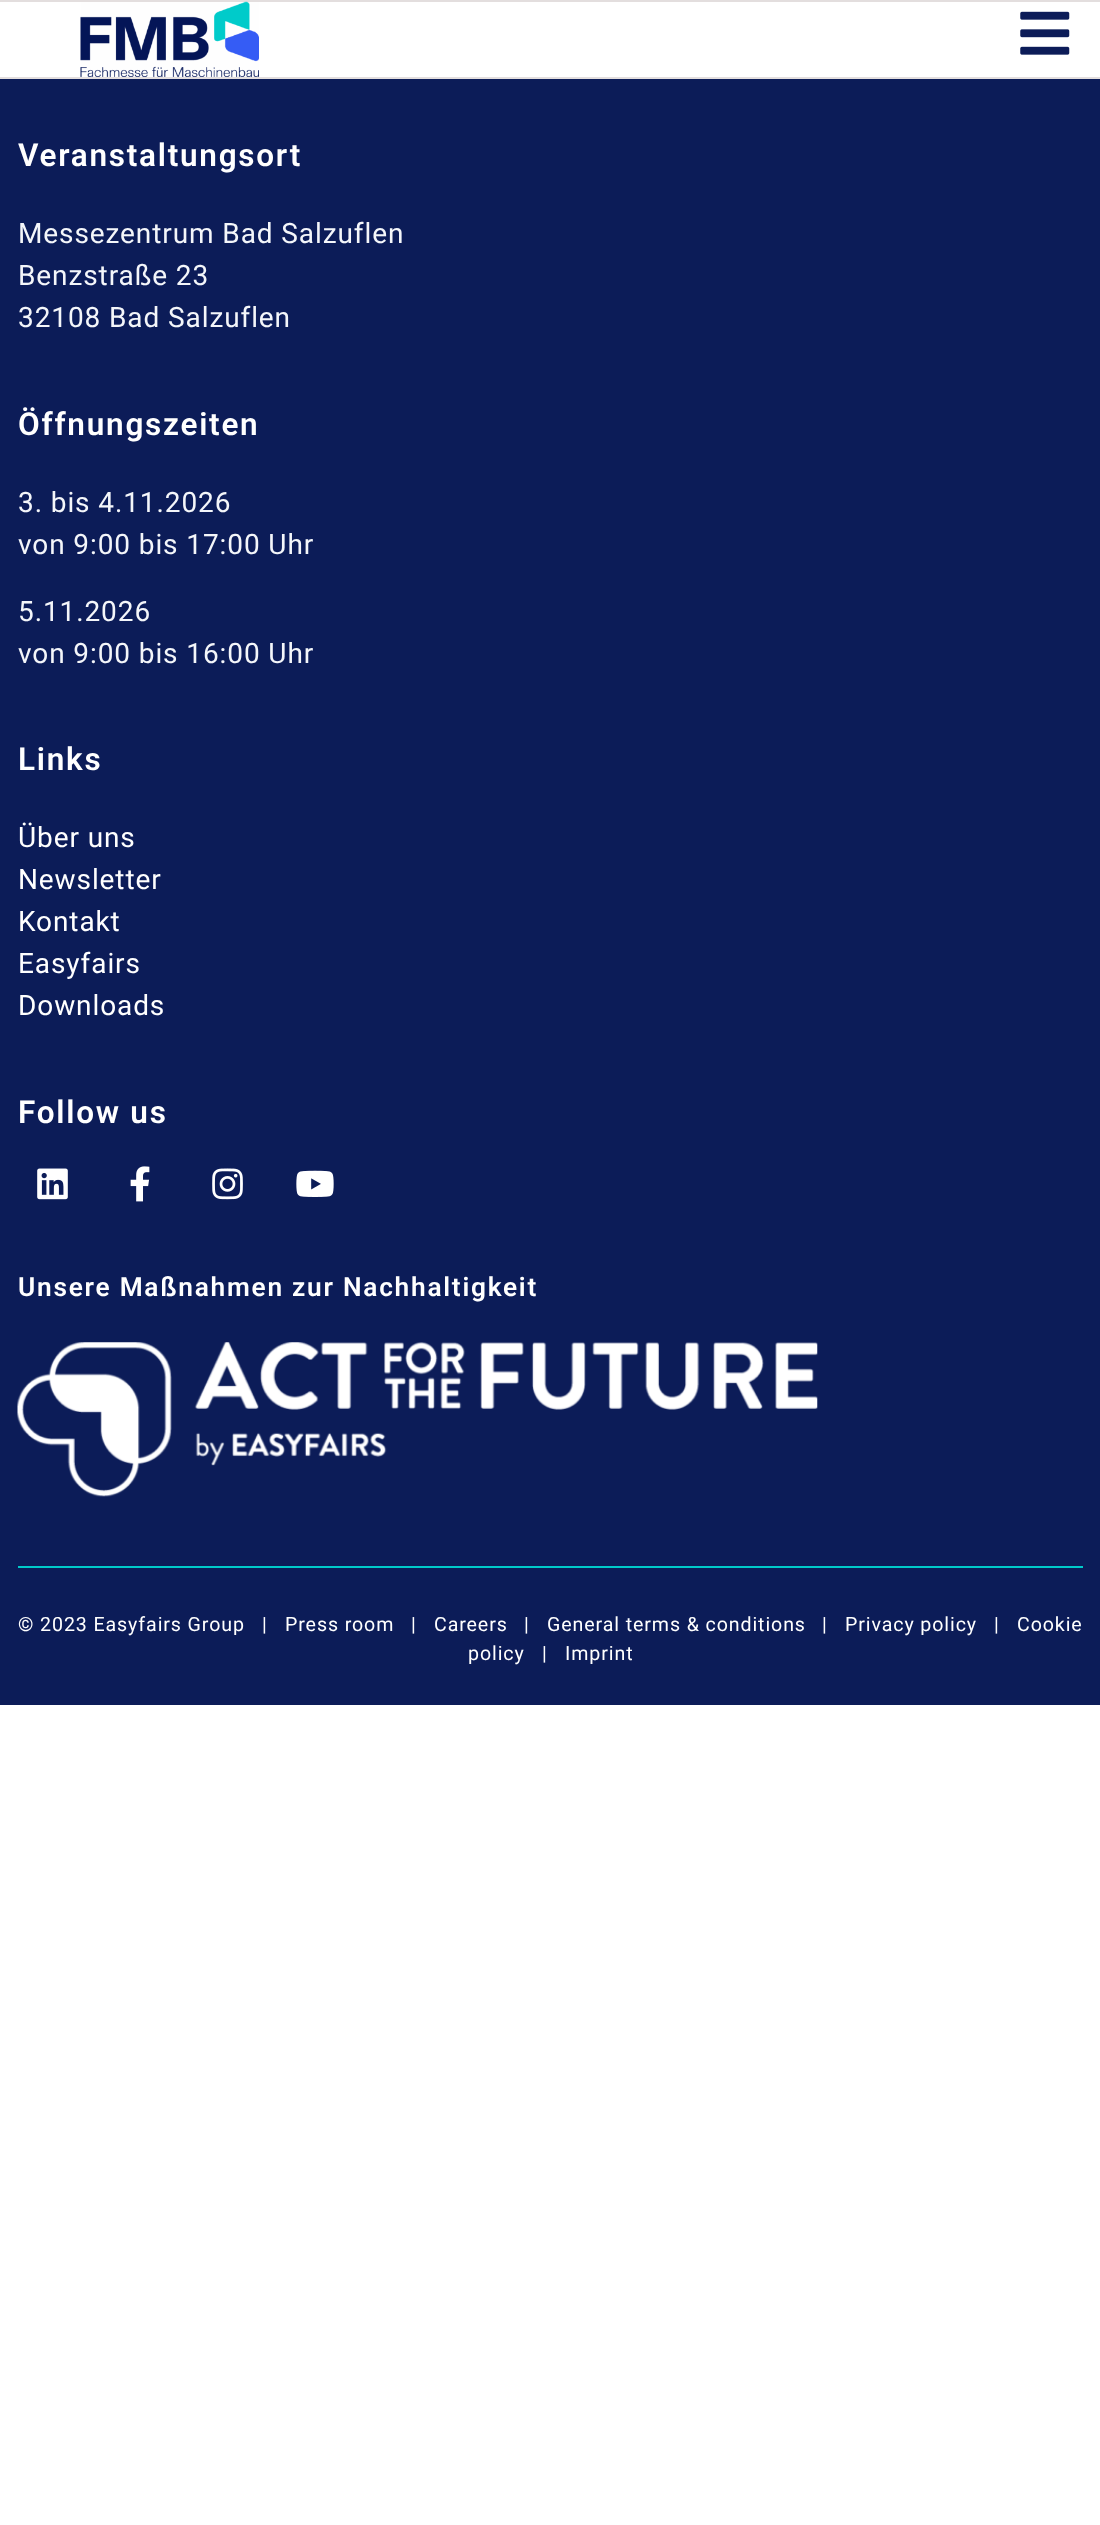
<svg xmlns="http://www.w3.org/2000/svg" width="1100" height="2525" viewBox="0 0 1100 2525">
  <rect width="100%" height="100%" fill="rgb(255,255,255)"/>
  <rect x="0" y="0" width="1100" height="2" fill="rgb(227,222,222)"/>
  <rect x="0" y="77" width="1100" height="2" fill="rgb(227,222,222)"/>
  <image x="80" y="1" width="179" height="76" href="pic1.png"/>
  <image x="1020" y="11" width="50" height="44" href="pic2.png"/>
  <rect x="0" y="79" width="1100" height="1626" fill="rgb(12,28,88)"/>
  <text x="18" y="166" font-family="Roboto" font-size="31.5" font-weight="600" letter-spacing="1.75" fill="rgb(255,255,255)">Veranstaltungsort</text>
  <g font-family="Roboto" font-size="28" letter-spacing="0.9" fill="rgb(244,246,250)">
    <text>
      <tspan x="18" y="243">Messezentrum Bad Salzuflen</tspan>
      <tspan x="18" y="285">Benzstraße 23</tspan>
      <tspan x="18" y="327">32108 Bad Salzuflen</tspan>
    </text>
  </g>
  <text x="18" y="435" font-family="Roboto" font-size="31.5" font-weight="600" letter-spacing="1.75" fill="rgb(255,255,255)">Öffnungszeiten</text>
  <g font-family="Roboto" font-size="28" letter-spacing="0.9" fill="rgb(244,246,250)">
    <text>
      <tspan x="18" y="512">3. bis 4.11.2026</tspan>
      <tspan x="18" y="554">von 9:00 bis 17:00 Uhr</tspan>
    </text>
    <text>
      <tspan x="18" y="621">5.11.2026</tspan>
      <tspan x="18" y="663">von 9:00 bis 16:00 Uhr</tspan>
    </text>
  </g>
  <text x="18" y="770" font-family="Roboto" font-size="31.5" font-weight="600" letter-spacing="1.75" fill="rgb(255,255,255)">Links</text>
  <g font-family="Roboto" font-size="28" letter-spacing="0.9" fill="rgb(255,255,255)">
    <text>
      <tspan x="18" y="847">Über uns</tspan>
      <tspan x="18" y="889">Newsletter</tspan>
      <tspan x="18" y="931">Kontakt</tspan>
      <tspan x="18" y="973">Easyfairs</tspan>
      <tspan x="18" y="1015">Downloads</tspan>
    </text>
  </g>
  <text x="18" y="1123" font-family="Roboto" font-size="31.5" font-weight="600" letter-spacing="1.75" fill="rgb(255,255,255)">Follow us</text>
  <image x="37" y="1168" width="31" height="32" href="pic3.png"/>
  <image x="130" y="1166" width="20" height="36" href="pic4.png"/>
  <image x="212" y="1168" width="31" height="32" href="pic5.png"/>
  <image x="296" y="1170" width="38" height="27" href="pic6.png"/>
  <text x="18" y="1296" font-family="Roboto" font-size="26.25" font-weight="600" letter-spacing="1.75" fill="rgb(255,255,255)">Unsere Maßnahmen zur Nachhaltigkeit</text>
  <image x="17" y="1342" width="801" height="155" href="pic7.png"/>
  <rect x="18" y="1566" width="1065" height="2" fill="rgb(0,202,201)"/>
  <g font-family="Roboto" font-size="19.6" letter-spacing="0.9" fill="rgb(255,255,255)">
    <text x="18" y="1631">© 2023 Easyfairs Group</text>
    <text x="262" y="1631">|</text>
    <text x="285" y="1631">Press room</text>
    <text x="411" y="1631">|</text>
    <text x="434" y="1631">Careers</text>
    <text x="524" y="1631">|</text>
    <text x="547" y="1631">General terms &amp; conditions</text>
    <text x="822" y="1631">|</text>
    <text x="845" y="1631">Privacy policy</text>
    <text x="994" y="1631">|</text>
    <text x="1017" y="1631">Cookie</text>
    <text x="468" y="1660">policy</text>
    <text x="542" y="1660">|</text>
    <text x="565" y="1660">Imprint</text>
  </g>
</svg>
